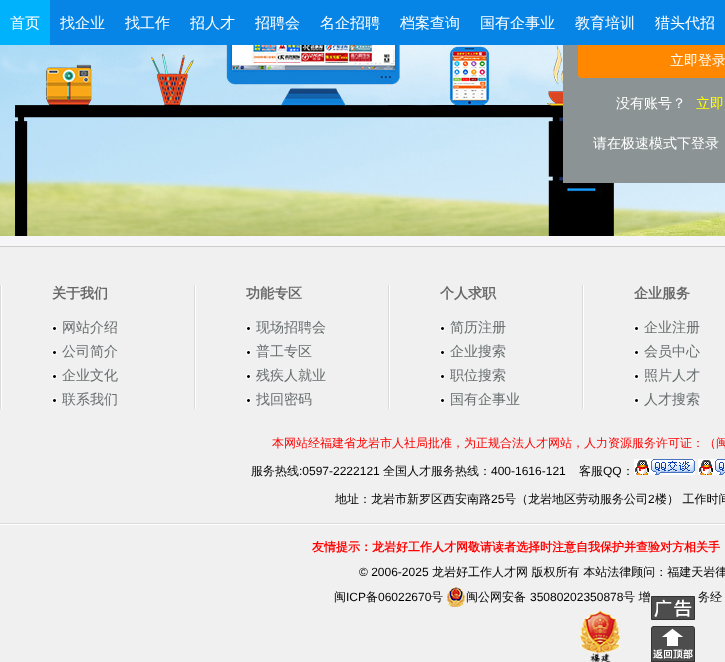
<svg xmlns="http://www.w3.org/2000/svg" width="725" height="662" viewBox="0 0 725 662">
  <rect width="100%" height="100%" fill="rgb(246,246,248)"/>
  <image x="0" y="45" width="725" height="191" href="pic1.png"/>
  <rect x="563" y="45" width="162" height="138" fill="rgb(140,147,148)"/>
  <rect x="578" y="43" width="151" height="35" rx="4" fill="rgb(255,136,0)"/>
  <rect x="50" y="0" width="675" height="45" fill="rgb(6,133,230)"/>
  <rect x="0" y="0" width="50" height="45" fill="rgb(0,178,252)"/>
  <g font-family="WenQuanYi Zen Hei" font-size="15" font-weight="500" fill="rgb(255,255,255)">
    <text x="10" y="28">首页</text>
    <text x="60" y="28">找企业</text>
    <text x="125" y="28">找工作</text>
    <text x="190" y="28">招人才</text>
    <text x="255" y="28">招聘会</text>
    <text x="320" y="28">名企招聘</text>
    <text x="400" y="28">档案查询</text>
    <text x="480" y="28">国有企事业</text>
    <text x="575" y="28">教育培训</text>
    <text x="655" y="28">猎头代招</text>
  </g>
  <g font-family="WenQuanYi Zen Hei" font-size="14" font-weight="500" fill="rgb(255,255,255)">
    <text x="670" y="65">立即登录</text>
    <text x="616" y="108">没有账号？</text>
  </g>
  <text x="696" y="108" font-family="WenQuanYi Zen Hei" font-size="14" font-weight="500" fill="rgb(255,255,0)">立即</text>
  <text x="593" y="148" font-family="WenQuanYi Zen Hei" font-size="14" font-weight="500" fill="rgb(255,255,255)">请在极速模式下登录</text>
  <rect x="0" y="247" width="725" height="415" fill="rgb(240,240,240)"/>
  <rect x="0" y="246" width="725" height="1" fill="rgb(204,204,204)"/>
  <rect x="0" y="285" width="1" height="124" fill="rgb(218,218,218)"/>
  <rect x="194" y="285" width="1" height="124" fill="rgb(218,218,218)"/>
  <rect x="1" y="285" width="1" height="124" fill="rgb(255,255,255)"/>
  <text x="52" y="298" font-family="WenQuanYi Zen Hei" font-size="14" font-weight="bold" fill="rgb(103,103,103)">关于我们</text>
  <image x="52" y="326" width="5" height="5" href="pic2.png"/>
  <text x="62" y="332" font-family="WenQuanYi Zen Hei" font-size="14" font-weight="500" fill="rgb(104,110,111)">网站介绍</text>
  <image x="52" y="350" width="5" height="5" href="pic2.png"/>
  <text x="62" y="356" font-family="WenQuanYi Zen Hei" font-size="14" font-weight="500" fill="rgb(104,110,111)">公司简介</text>
  <image x="52" y="374" width="5" height="5" href="pic2.png"/>
  <text x="62" y="380" font-family="WenQuanYi Zen Hei" font-size="14" font-weight="500" fill="rgb(104,110,111)">企业文化</text>
  <image x="52" y="398" width="5" height="5" href="pic2.png"/>
  <text x="62" y="404" font-family="WenQuanYi Zen Hei" font-size="14" font-weight="500" fill="rgb(104,110,111)">联系我们</text>
  <rect x="388" y="285" width="1" height="124" fill="rgb(218,218,218)"/>
  <rect x="195" y="285" width="1" height="124" fill="rgb(255,255,255)"/>
  <text x="246" y="298" font-family="WenQuanYi Zen Hei" font-size="14" font-weight="bold" fill="rgb(103,103,103)">功能专区</text>
  <image x="246" y="326" width="5" height="5" href="pic2.png"/>
  <text x="256" y="332" font-family="WenQuanYi Zen Hei" font-size="14" font-weight="500" fill="rgb(104,110,111)">现场招聘会</text>
  <image x="246" y="350" width="5" height="5" href="pic2.png"/>
  <text x="256" y="356" font-family="WenQuanYi Zen Hei" font-size="14" font-weight="500" fill="rgb(104,110,111)">普工专区</text>
  <image x="246" y="374" width="5" height="5" href="pic2.png"/>
  <text x="256" y="380" font-family="WenQuanYi Zen Hei" font-size="14" font-weight="500" fill="rgb(104,110,111)">残疾人就业</text>
  <image x="246" y="398" width="5" height="5" href="pic2.png"/>
  <text x="256" y="404" font-family="WenQuanYi Zen Hei" font-size="14" font-weight="500" fill="rgb(104,110,111)">找回密码</text>
  <rect x="582" y="285" width="1" height="124" fill="rgb(218,218,218)"/>
  <rect x="389" y="285" width="1" height="124" fill="rgb(255,255,255)"/>
  <text x="440" y="298" font-family="WenQuanYi Zen Hei" font-size="14" font-weight="bold" fill="rgb(103,103,103)">个人求职</text>
  <image x="440" y="326" width="5" height="5" href="pic2.png"/>
  <text x="450" y="332" font-family="WenQuanYi Zen Hei" font-size="14" font-weight="500" fill="rgb(104,110,111)">简历注册</text>
  <image x="440" y="350" width="5" height="5" href="pic2.png"/>
  <text x="450" y="356" font-family="WenQuanYi Zen Hei" font-size="14" font-weight="500" fill="rgb(104,110,111)">企业搜索</text>
  <image x="440" y="374" width="5" height="5" href="pic2.png"/>
  <text x="450" y="380" font-family="WenQuanYi Zen Hei" font-size="14" font-weight="500" fill="rgb(104,110,111)">职位搜索</text>
  <image x="440" y="398" width="5" height="5" href="pic2.png"/>
  <text x="450" y="404" font-family="WenQuanYi Zen Hei" font-size="14" font-weight="500" fill="rgb(104,110,111)">国有企事业</text>
  <rect x="583" y="285" width="1" height="124" fill="rgb(255,255,255)"/>
  <text x="634" y="298" font-family="WenQuanYi Zen Hei" font-size="14" font-weight="bold" fill="rgb(103,103,103)">企业服务</text>
  <image x="634" y="326" width="5" height="5" href="pic2.png"/>
  <text x="644" y="332" font-family="WenQuanYi Zen Hei" font-size="14" font-weight="500" fill="rgb(104,110,111)">企业注册</text>
  <image x="634" y="350" width="5" height="5" href="pic2.png"/>
  <text x="644" y="356" font-family="WenQuanYi Zen Hei" font-size="14" font-weight="500" fill="rgb(104,110,111)">会员中心</text>
  <image x="634" y="374" width="5" height="5" href="pic2.png"/>
  <text x="644" y="380" font-family="WenQuanYi Zen Hei" font-size="14" font-weight="500" fill="rgb(104,110,111)">照片人才</text>
  <image x="634" y="398" width="5" height="5" href="pic2.png"/>
  <text x="644" y="404" font-family="WenQuanYi Zen Hei" font-size="14" font-weight="500" fill="rgb(104,110,111)">人才搜索</text>
  <rect x="0" y="523" width="725" height="1" fill="rgb(218,218,218)"/>
  <text x="272" y="447" font-family="WenQuanYi Zen Hei" font-size="12" font-weight="500" fill="rgb(255,0,0)">本网站经福建省龙岩市人社局批准，为正规合法人才网站，人力资源服务许可证：（闽</text>
  <text x="251" y="475" font-family="WenQuanYi Zen Hei" font-size="12" font-weight="500" fill="rgb(0,0,0)">服务热线</text>
  <text x="299" y="475" font-family="Liberation Sans" font-size="12" fill="rgb(0,0,0)">:0597-2222121</text>
  <text x="383" y="475" font-family="WenQuanYi Zen Hei" font-size="12" font-weight="500" fill="rgb(0,0,0)">全国人才服务热线：</text>
  <text x="491" y="475" font-family="Liberation Sans" font-size="12" fill="rgb(0,0,0)">400-1616-121</text>
  <text x="579" y="475" font-family="WenQuanYi Zen Hei" font-size="12" font-weight="500" fill="rgb(0,0,0)">客服</text>
  <text x="603" y="475" font-family="Liberation Sans" font-size="12" fill="rgb(0,0,0)">QQ</text>
  <text x="622" y="475" font-family="WenQuanYi Zen Hei" font-size="12" font-weight="500" fill="rgb(0,0,0)">：</text>
  <image x="634" y="459" width="61" height="16" href="pic3.png"/>
  <image x="698" y="459" width="27" height="16" href="pic4.png"/>
  <text x="335" y="503" font-family="WenQuanYi Zen Hei" font-size="12" font-weight="500" fill="rgb(0,0,0)">地址：龙岩市新罗区西安南路</text>
  <text x="491" y="503" font-family="Liberation Sans" font-size="12" fill="rgb(0,0,0)">25</text>
  <text x="504" y="503" font-family="WenQuanYi Zen Hei" font-size="12" font-weight="500" fill="rgb(0,0,0)">号（龙岩地区劳动服务公司</text>
  <text x="648" y="503" font-family="Liberation Sans" font-size="12" fill="rgb(0,0,0)">2</text>
  <text x="655" y="503" font-family="WenQuanYi Zen Hei" font-size="12" font-weight="500" fill="rgb(0,0,0)">楼） 工作时间</text>
  <rect x="0" y="524" width="725" height="1" fill="rgb(255,255,255)"/>
  <text x="312" y="551" font-family="WenQuanYi Zen Hei" font-size="12" font-weight="bold" fill="rgb(255,0,0)">友情提示：龙岩好工作人才网敬请读者选择时注意自我保护并查验对方相关手</text>
  <text x="359" y="576" font-family="Liberation Sans" font-size="12" fill="rgb(0,0,0)">© 2006-2025</text>
  <g font-family="WenQuanYi Zen Hei" font-size="12" font-weight="500" fill="rgb(0,0,0)">
    <text x="432" y="576">龙岩好工作人才网 版权所有 本站法律顾问：福建天岩律</text>
    <text x="334" y="601">闽</text>
  </g>
  <text x="346" y="601" font-family="Liberation Sans" font-size="12" fill="rgb(0,0,0)">ICP</text>
  <text x="366" y="601" font-family="WenQuanYi Zen Hei" font-size="12" font-weight="500" fill="rgb(0,0,0)">备</text>
  <text x="378" y="601" font-family="Liberation Sans" font-size="12" fill="rgb(0,0,0)">06022670</text>
  <text x="431" y="601" font-family="WenQuanYi Zen Hei" font-size="12" font-weight="500" fill="rgb(0,0,0)">号</text>
  <image x="447" y="587" width="18" height="20" href="pic5.png"/>
  <text x="466" y="601" font-family="WenQuanYi Zen Hei" font-size="12" font-weight="500" fill="rgb(0,0,0)">闽公网安备</text>
  <text x="530" y="601" font-family="Liberation Sans" font-size="12" fill="rgb(0,0,0)">35080202350878</text>
  <g font-family="WenQuanYi Zen Hei" font-size="12" font-weight="500" fill="rgb(0,0,0)">
    <text x="623" y="601">号 增</text>
    <text x="698" y="601">务经</text>
  </g>
  <image x="580" y="610" width="40" height="52" href="pic6.png"/>
  <image x="651" y="596" width="44" height="66" href="pic7.png"/>
</svg>
